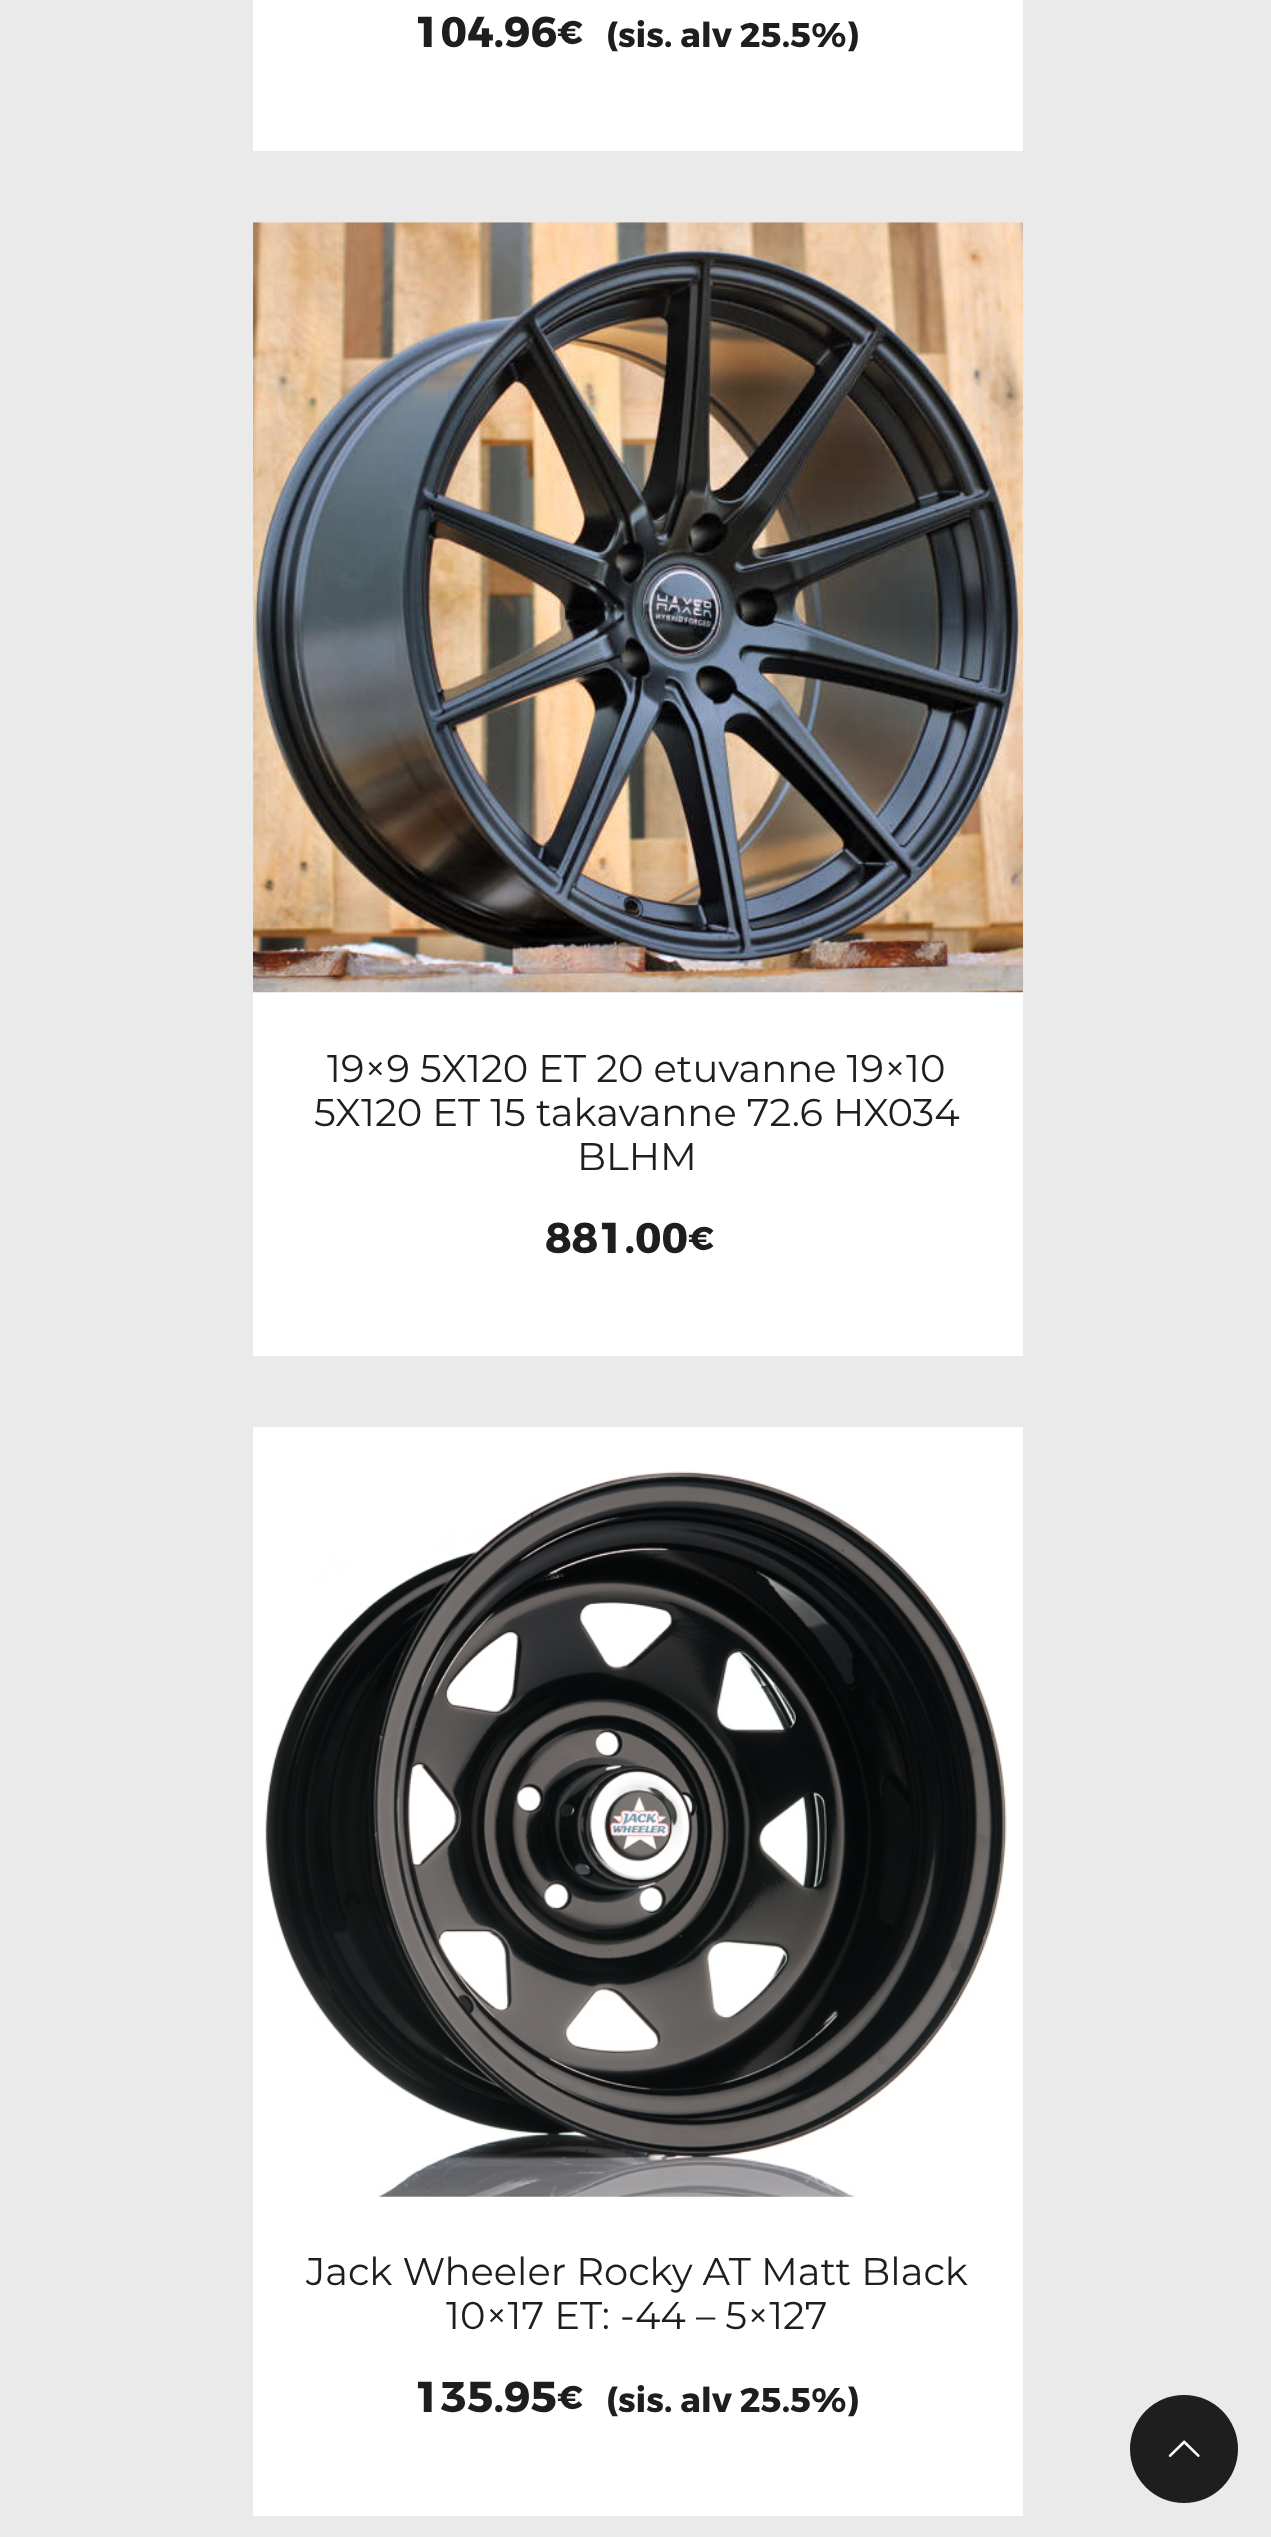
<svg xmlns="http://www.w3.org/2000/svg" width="1271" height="2537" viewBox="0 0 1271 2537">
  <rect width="100%" height="100%" fill="rgb(234,234,234)"/>
  <rect x="253" y="0" width="770" height="151" fill="rgb(255,255,255)"/>
  <text x="414" y="47" font-family="Montserrat" font-size="43" font-weight="bold" fill="rgb(30,30,30)">104.96</text>
  <text x="557" y="44" font-family="Montserrat" font-size="33" font-weight="bold" fill="rgb(30,30,30)">€</text>
  <text x="606" y="47" font-family="Montserrat" font-size="34.25" font-weight="bold" fill="rgb(30,30,30)">(sis. alv 25.5%)</text>
  <rect x="253" y="992" width="770" height="364" fill="rgb(255,255,255)"/>
  <image x="253" y="222" width="770" height="771" href="pic1.png"/>
  <g font-family="Montserrat" font-size="38.5" fill="rgb(30,30,30)">
    <text x="327" y="1082">19×9 5X120 ET 20 etuvanne 19×10</text>
    <text x="314" y="1126">5X120 ET 15 takavanne 72.6 HX034</text>
    <text x="577" y="1170">BLHM</text>
  </g>
  <text x="545" y="1253" font-family="Montserrat" font-size="43" font-weight="bold" fill="rgb(30,30,30)">881.00</text>
  <text x="688" y="1250" font-family="Montserrat" font-size="33" font-weight="bold" fill="rgb(30,30,30)">€</text>
  <rect x="253" y="1427" width="770" height="1089" fill="rgb(255,255,255)"/>
  <image x="265" y="1471" width="742" height="726" href="pic2.png"/>
  <g font-family="Montserrat" font-size="38.5" fill="rgb(30,30,30)">
    <text x="306" y="2285">Jack Wheeler Rocky AT Matt Black</text>
    <text x="446" y="2329">10×17 ET: -44 – 5×127</text>
  </g>
  <text x="414" y="2412" font-family="Montserrat" font-size="43" font-weight="bold" fill="rgb(30,30,30)">135.95</text>
  <text x="557" y="2409" font-family="Montserrat" font-size="33" font-weight="bold" fill="rgb(30,30,30)">€</text>
  <text x="606" y="2412" font-family="Montserrat" font-size="34.25" font-weight="bold" fill="rgb(30,30,30)">(sis. alv 25.5%)</text>
  <circle cx="1184" cy="2449" r="54" fill="rgb(30,30,30)"/>
  <image x="1168" y="2440" width="32" height="17" href="pic3.png"/>
</svg>
